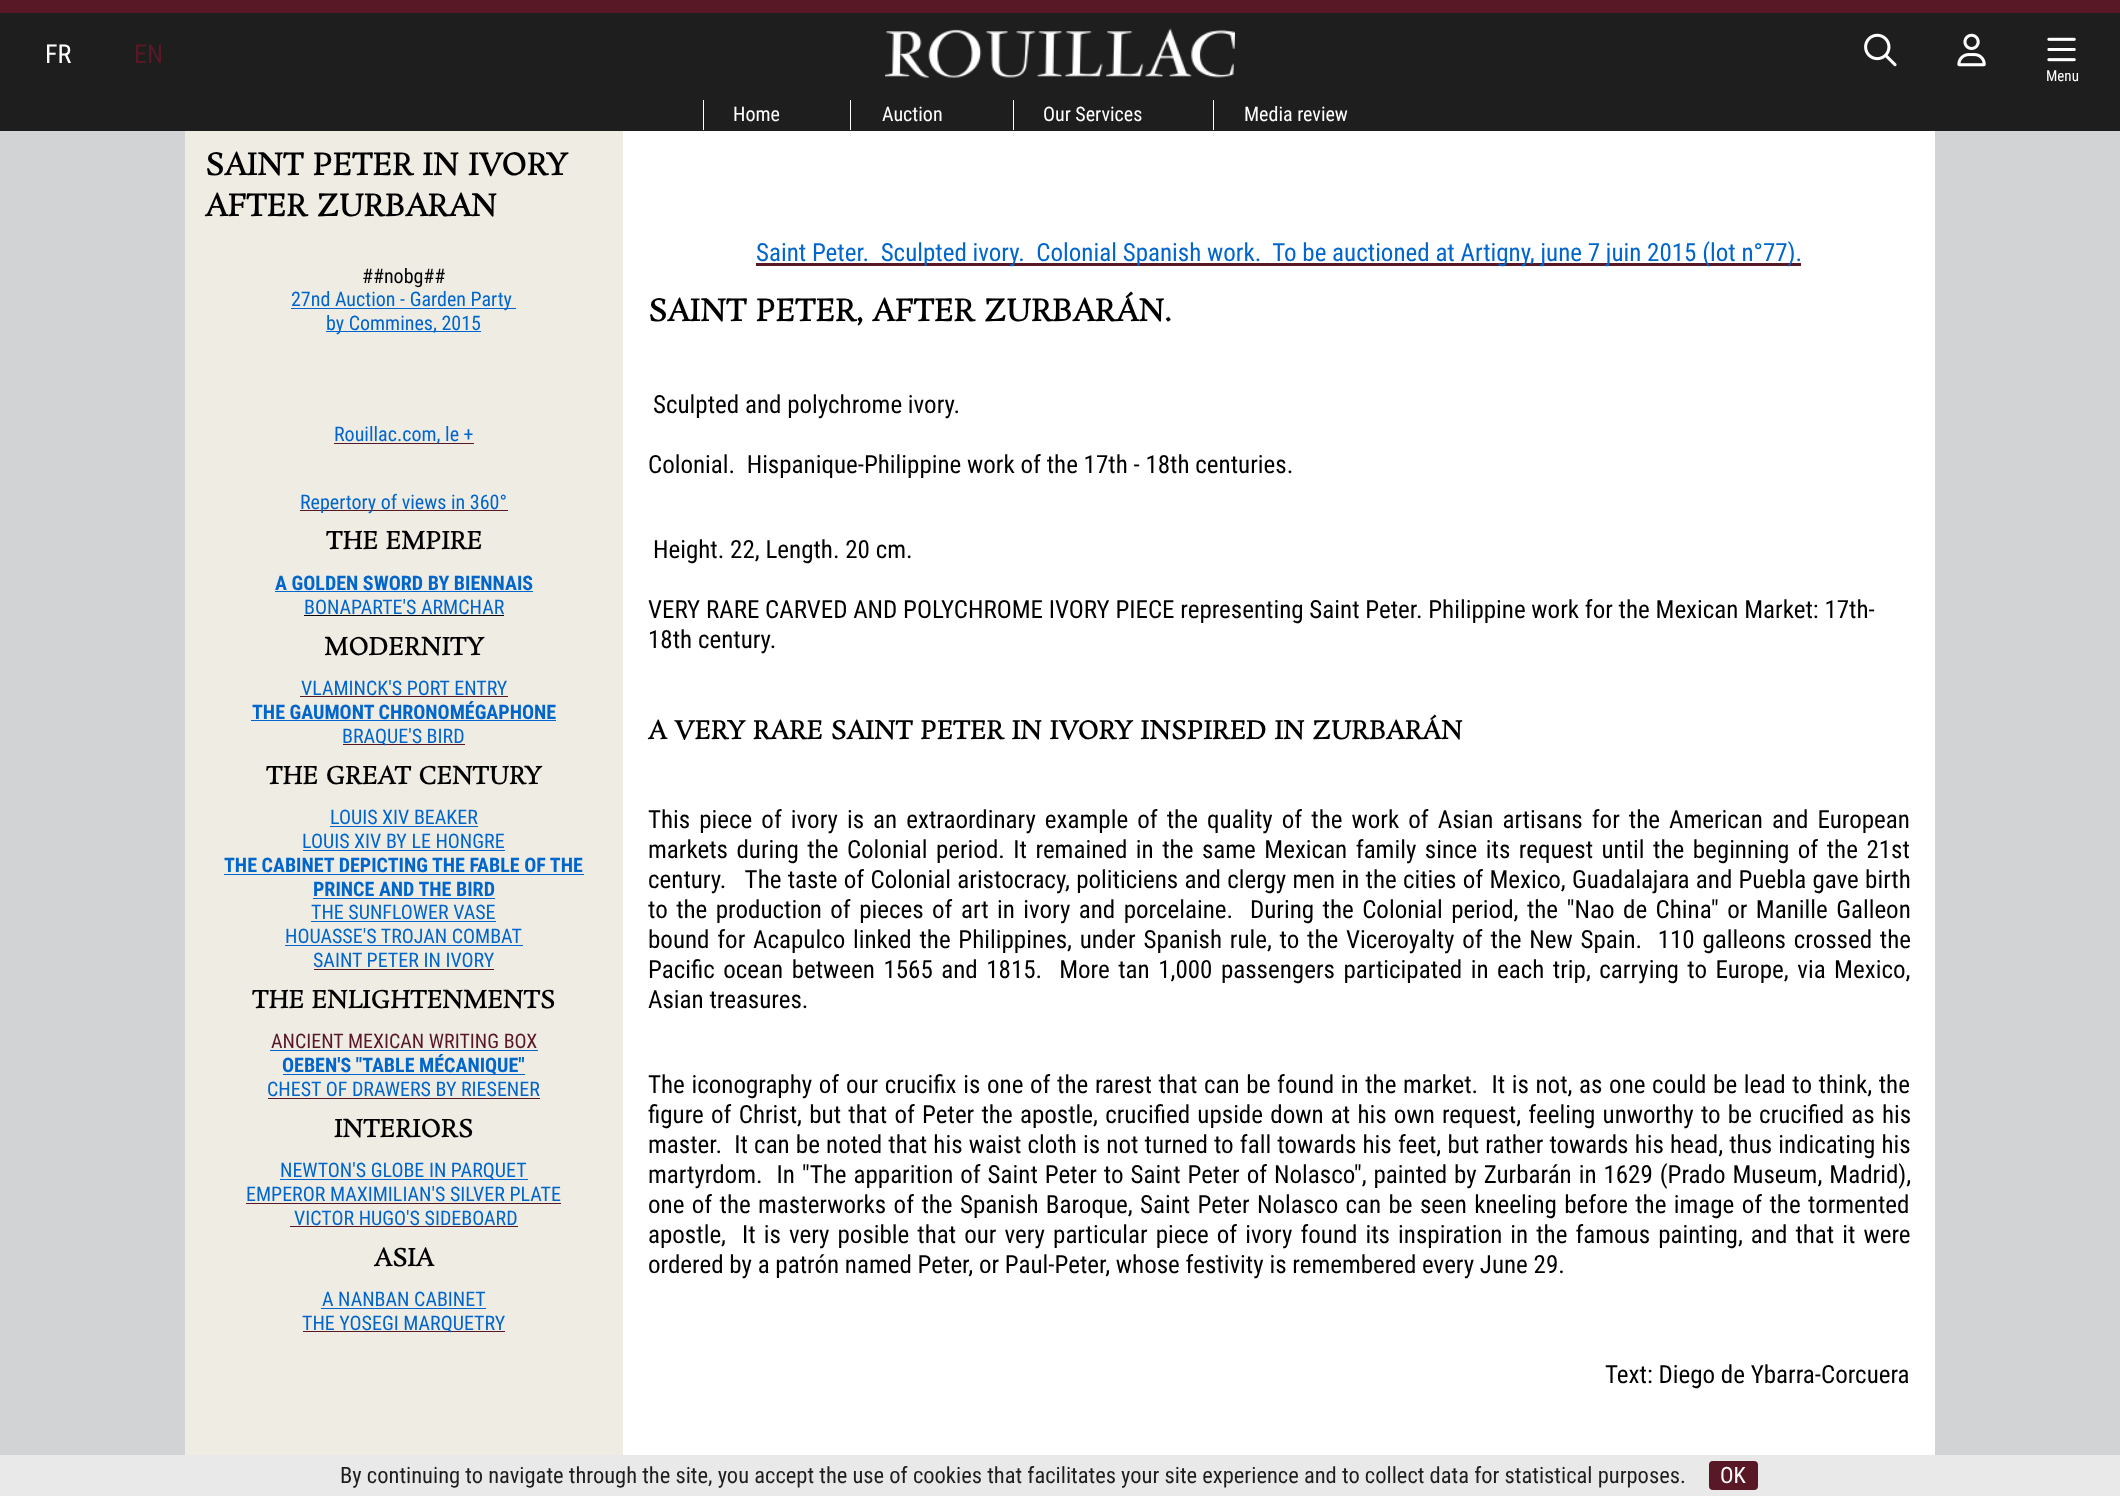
<svg xmlns="http://www.w3.org/2000/svg" width="2120" height="1496" viewBox="0 0 2120 1496">
  <rect width="100%" height="100%" fill="rgb(209,211,212)"/>
  <rect x="0" y="13" width="2120" height="118" fill="rgb(30,30,30)"/>
  <rect x="0" y="0" width="2120" height="13" fill="rgb(89,24,38)"/>
  <text x="45" y="63" font-family="Roboto Condensed" font-size="26" fill="rgb(255,255,255)">FR</text>
  <text x="134" y="63" font-family="Roboto Condensed" font-size="26" fill="rgb(89,24,38)">EN</text>
  <image x="885" y="28" width="350" height="50" href="pic1.png"/>
  <image x="1864" y="33" width="33" height="34" href="pic2.png"/>
  <image x="1957" y="33" width="29" height="34" href="pic3.png"/>
  <image x="2047" y="37" width="29" height="25" href="pic4.png"/>
  <text x="2046" y="81" font-family="Roboto Condensed" font-size="15" fill="rgb(255,255,255)">Menu</text>
  <rect x="703" y="100" width="1" height="30" fill="rgb(255,255,255)"/>
  <text x="733" y="121" font-family="Roboto Condensed" font-size="20" fill="rgb(255,255,255)">Home</text>
  <rect x="850" y="100" width="1" height="30" fill="rgb(255,255,255)"/>
  <text x="882" y="121" font-family="Roboto Condensed" font-size="20" fill="rgb(255,255,255)">Auction</text>
  <rect x="1013" y="100" width="1" height="30" fill="rgb(255,255,255)"/>
  <text x="1043" y="121" font-family="Roboto Condensed" font-size="20" fill="rgb(255,255,255)">Our Services</text>
  <rect x="1213" y="100" width="1" height="30" fill="rgb(255,255,255)"/>
  <text x="1244" y="121" font-family="Roboto Condensed" font-size="20" fill="rgb(255,255,255)">Media review</text>
  <rect x="185" y="131" width="438" height="1324" fill="rgb(239,236,228)"/>
  <g font-family="Rosarivo" font-size="30" font-weight="bold" fill="rgb(0,0,0)">
    <text>
      <tspan x="205" y="175">SAINT PETER IN IVORY</tspan>
      <tspan x="205" y="216">AFTER ZURBARAN</tspan>
    </text>
  </g>
  <text x="362" y="283" font-family="Roboto Condensed" font-size="20" fill="rgb(0,0,0)">##nobg##</text>
  <rect x="291" y="308" width="225" height="1" fill="rgb(0,102,204)"/>
  <text x="291" y="306" font-family="Roboto Condensed" font-size="20" fill="rgb(0,102,204)">27nd Auction - Garden Party</text>
  <rect x="326" y="331" width="155" height="1" fill="rgb(0,102,204)"/>
  <text x="326" y="330" font-family="Roboto Condensed" font-size="20" fill="rgb(0,102,204)">by Commines, 2015</text>
  <rect x="334" y="443" width="140" height="1" fill="rgb(89,24,38)"/>
  <text x="334" y="441" font-family="Roboto Condensed" font-size="20" fill="rgb(0,102,204)">Rouillac.com, le +</text>
  <rect x="300" y="510" width="208" height="1" fill="rgb(89,24,38)"/>
  <text x="300" y="509" font-family="Roboto Condensed" font-size="20" fill="rgb(0,102,204)">Repertory of views in 360°</text>
  <text x="326" y="549" font-family="Rosarivo" font-size="24" font-weight="bold" fill="rgb(0,0,0)">THE EMPIRE</text>
  <text x="275" y="590" font-family="Roboto Condensed" font-size="20" font-weight="bold" fill="rgb(0,102,204)">A GOLDEN SWORD BY BIENNAIS</text>
  <rect x="275" y="591" width="258" height="1" fill="rgb(0,102,204)"/>
  <text x="304" y="614" font-family="Roboto Condensed" font-size="20" fill="rgb(0,102,204)">BONAPARTE'S ARMCHAR</text>
  <rect x="304" y="615" width="200" height="1" fill="rgb(0,0,0)"/>
  <text x="324" y="655" font-family="Rosarivo" font-size="24" font-weight="bold" fill="rgb(0,0,0)">MODERNITY</text>
  <text x="301" y="695" font-family="Roboto Condensed" font-size="20" fill="rgb(0,102,204)">VLAMINCK'S PORT ENTRY</text>
  <rect x="300" y="696" width="208" height="1" fill="rgb(89,24,38)"/>
  <text x="252" y="719" font-family="Roboto Condensed" font-size="20" font-weight="bold" fill="rgb(0,102,204)">THE GAUMONT CHRONOMÉGAPHONE</text>
  <rect x="251" y="720" width="305" height="1" fill="rgb(0,102,204)"/>
  <rect x="343" y="744" width="122" height="1" fill="rgb(89,24,38)"/>
  <text x="342" y="743" font-family="Roboto Condensed" font-size="20" fill="rgb(0,102,204)">BRAQUE'S BIRD</text>
  <text x="266" y="784" font-family="Rosarivo" font-size="24" font-weight="bold" fill="rgb(0,0,0)">THE GREAT CENTURY</text>
  <text x="330" y="824" font-family="Roboto Condensed" font-size="20" fill="rgb(0,102,204)">LOUIS XIV BEAKER</text>
  <rect x="330" y="826" width="148" height="1" fill="rgb(0,102,204)"/>
  <text x="302" y="848" font-family="Roboto Condensed" font-size="20" fill="rgb(0,102,204)">LOUIS XIV BY LE HONGRE</text>
  <rect x="303" y="850" width="202" height="1" fill="rgb(0,102,204)"/>
  <text x="224" y="872" font-family="Roboto Condensed" font-size="20" font-weight="bold" fill="rgb(0,102,204)">THE CABINET DEPICTING THE FABLE OF THE</text>
  <rect x="224" y="874" width="360" height="1" fill="rgb(0,102,204)"/>
  <text x="313" y="896" font-family="Roboto Condensed" font-size="20" font-weight="bold" fill="rgb(0,102,204)">PRINCE AND THE BIRD</text>
  <rect x="313" y="898" width="182" height="1" fill="rgb(0,102,204)"/>
  <text x="311" y="919" font-family="Roboto Condensed" font-size="20" fill="rgb(0,102,204)">THE SUNFLOWER VASE</text>
  <rect x="311" y="921" width="185" height="1" fill="rgb(0,102,204)"/>
  <text x="285" y="943" font-family="Roboto Condensed" font-size="20" fill="rgb(0,102,204)">HOUASSE'S TROJAN COMBAT</text>
  <rect x="285" y="945" width="238" height="1" fill="rgb(0,102,204)"/>
  <text x="313" y="967" font-family="Roboto Condensed" font-size="20" fill="rgb(0,102,204)">SAINT PETER IN IVORY</text>
  <rect x="314" y="969" width="180" height="1" fill="rgb(89,24,38)"/>
  <text x="252" y="1008" font-family="Rosarivo" font-size="24" font-weight="bold" fill="rgb(0,0,0)">THE ENLIGHTENMENTS</text>
  <text x="271" y="1048" font-family="Roboto Condensed" font-size="20" fill="rgb(89,24,38)">ANCIENT MEXICAN WRITING BOX</text>
  <rect x="270" y="1050" width="268" height="1" fill="rgb(0,102,204)"/>
  <rect x="283" y="1074" width="242" height="1" fill="rgb(0,102,204)"/>
  <text x="282" y="1072" font-family="Roboto Condensed" font-size="20" font-weight="bold" fill="rgb(0,102,204)">OEBEN'S "TABLE MÉCANIQUE"</text>
  <text x="267" y="1096" font-family="Roboto Condensed" font-size="20" fill="rgb(0,102,204)">CHEST OF DRAWERS BY RIESENER</text>
  <rect x="268" y="1098" width="272" height="1" fill="rgb(89,24,38)"/>
  <text x="334" y="1137" font-family="Rosarivo" font-size="24" font-weight="bold" fill="rgb(0,0,0)">INTERIORS</text>
  <rect x="280" y="1179" width="248" height="1" fill="rgb(0,102,204)"/>
  <g font-family="Roboto Condensed" font-size="20" fill="rgb(0,102,204)">
    <text x="280" y="1177">NEWTON'S GLOBE IN PARQUET</text>
    <text x="246" y="1201">EMPEROR MAXIMILIAN'S SILVER PLATE</text>
  </g>
  <rect x="246" y="1203" width="315" height="1" fill="rgb(89,24,38)"/>
  <text x="294" y="1225" font-family="Roboto Condensed" font-size="20" fill="rgb(0,102,204)">VICTOR HUGO'S SIDEBOARD</text>
  <rect x="290" y="1226" width="228" height="1" fill="rgb(89,24,38)"/>
  <text x="374" y="1266" font-family="Rosarivo" font-size="24" font-weight="bold" fill="rgb(0,0,0)">ASIA</text>
  <text x="322" y="1306" font-family="Roboto Condensed" font-size="20" fill="rgb(0,102,204)">A NANBAN CABINET</text>
  <rect x="321" y="1308" width="165" height="1" fill="rgb(0,102,204)"/>
  <rect x="303" y="1331" width="202" height="1" fill="rgb(89,24,38)"/>
  <text x="302" y="1330" font-family="Roboto Condensed" font-size="20" fill="rgb(0,102,204)">THE YOSEGI MARQUETRY</text>
  <rect x="623" y="131" width="1312" height="1324" fill="rgb(255,255,255)"/>
  <rect x="756" y="263" width="1045" height="3" fill="rgb(89,24,38)"/>
  <text x="756" y="261" font-family="Roboto Condensed" font-size="25" fill="rgb(0,102,204)" xml:space="preserve">Saint Peter.  Sculpted ivory.  Colonial Spanish work.  To be auctioned at Artigny, june 7 juin 2015 (lot n°77).</text>
  <text x="648" y="321" font-family="Rosarivo" font-size="30" font-weight="bold" fill="rgb(0,0,0)">SAINT PETER, AFTER ZURBARÁN.</text>
  <g font-family="Roboto Condensed" font-size="25" fill="rgb(0,0,0)">
    <text x="653" y="413">Sculpted and polychrome ivory.</text>
    <text x="648" y="473" xml:space="preserve">Colonial.  Hispanique-Philippine work of the 17th - 18th centuries.</text>
    <text x="653" y="558">Height. 22, Length. 20 cm.</text>
    <text>
      <tspan x="648" y="618">VERY RARE CARVED AND POLYCHROME IVORY PIECE representing Saint Peter. Philippine work for the Mexican Market: 17th-</tspan>
      <tspan x="648" y="648">18th century.</tspan>
    </text>
  </g>
  <text x="648" y="739" font-family="Rosarivo" font-size="25" font-weight="bold" fill="rgb(0,0,0)">A VERY RARE SAINT PETER IN IVORY INSPIRED IN ZURBARÁN</text>
  <g font-family="Roboto Condensed" font-size="25" fill="rgb(0,0,0)">
    <text xml:space="preserve"><tspan x="648" y="828" word-spacing="3.3">This piece of ivory is an extraordinary example of the quality of the work of Asian artisans for the American and European</tspan><tspan x="648" y="858" word-spacing="2.75">markets during the Colonial period. It remained in the same Mexican family since its request until the beginning of the 21st</tspan><tspan x="648" y="888" word-spacing="0.5">century.   The taste of Colonial aristocracy, politiciens and clergy men in the cities of Mexico, Guadalajara and Puebla gave birth</tspan><tspan x="648" y="918" word-spacing="2.7">to the production of pieces of art in ivory and porcelaine.  During the Colonial period, the "Nao de China" or Manille Galleon</tspan><tspan x="648" y="948" word-spacing="2">bound for Acapulco linked the Philippines, under Spanish rule, to the Viceroyalty of the New Spain.  110 galleons crossed the</tspan><tspan x="648" y="978" word-spacing="2.75">Pacific ocean between 1565 and 1815.  More tan 1,000 passengers participated in each trip, carrying to Europe, via Mexico,</tspan><tspan x="648" y="1008">Asian treasures.</tspan></text>
    <text xml:space="preserve"><tspan x="648" y="1093" word-spacing="0.9">The iconography of our crucifix is one of the rarest that can be found in the market.  It is not, as one could be lead to think, the</tspan><tspan x="648" y="1123" word-spacing="1.5">figure of Christ, but that of Peter the apostle, crucified upside down at his own request, feeling unworthy to be crucified as his</tspan><tspan x="648" y="1153" word-spacing="0.4">master.  It can be noted that his waist cloth is not turned to fall towards his feet, but rather towards his head, thus indicating his</tspan><tspan x="648" y="1183" word-spacing="1.2">martyrdom.  In "The apparition of Saint Peter to Saint Peter of Nolasco", painted by Zurbarán in 1629 (Prado Museum, Madrid),</tspan><tspan x="648" y="1213" word-spacing="1.6">one of the masterworks of the Spanish Baroque, Saint Peter Nolasco can be seen kneeling before the image of the tormented</tspan><tspan x="648" y="1243" word-spacing="2.3">apostle,  It is very posible that our very particular piece of ivory found its inspiration in the famous painting, and that it were</tspan><tspan x="648" y="1273">ordered by a patrón named Peter, or Paul-Peter, whose festivity is remembered every June 29.</tspan></text>
    <text x="1605" y="1383">Text: Diego de Ybarra-Corcuera</text>
  </g>
  <rect x="0" y="1455" width="2120" height="41" fill="rgb(233,233,233)"/>
  <text x="340" y="1483" font-family="Roboto Condensed" font-size="22.5" fill="rgb(30,30,30)">By continuing to navigate through the site, you accept the use of cookies that facilitates your site experience and to collect data for statistical purposes.</text>
  <rect x="1709" y="1461" width="49" height="29" rx="4" fill="rgb(89,24,38)"/>
  <text x="1720" y="1483" font-family="Roboto Condensed" font-size="22.5" fill="rgb(255,255,255)">OK</text>
</svg>
